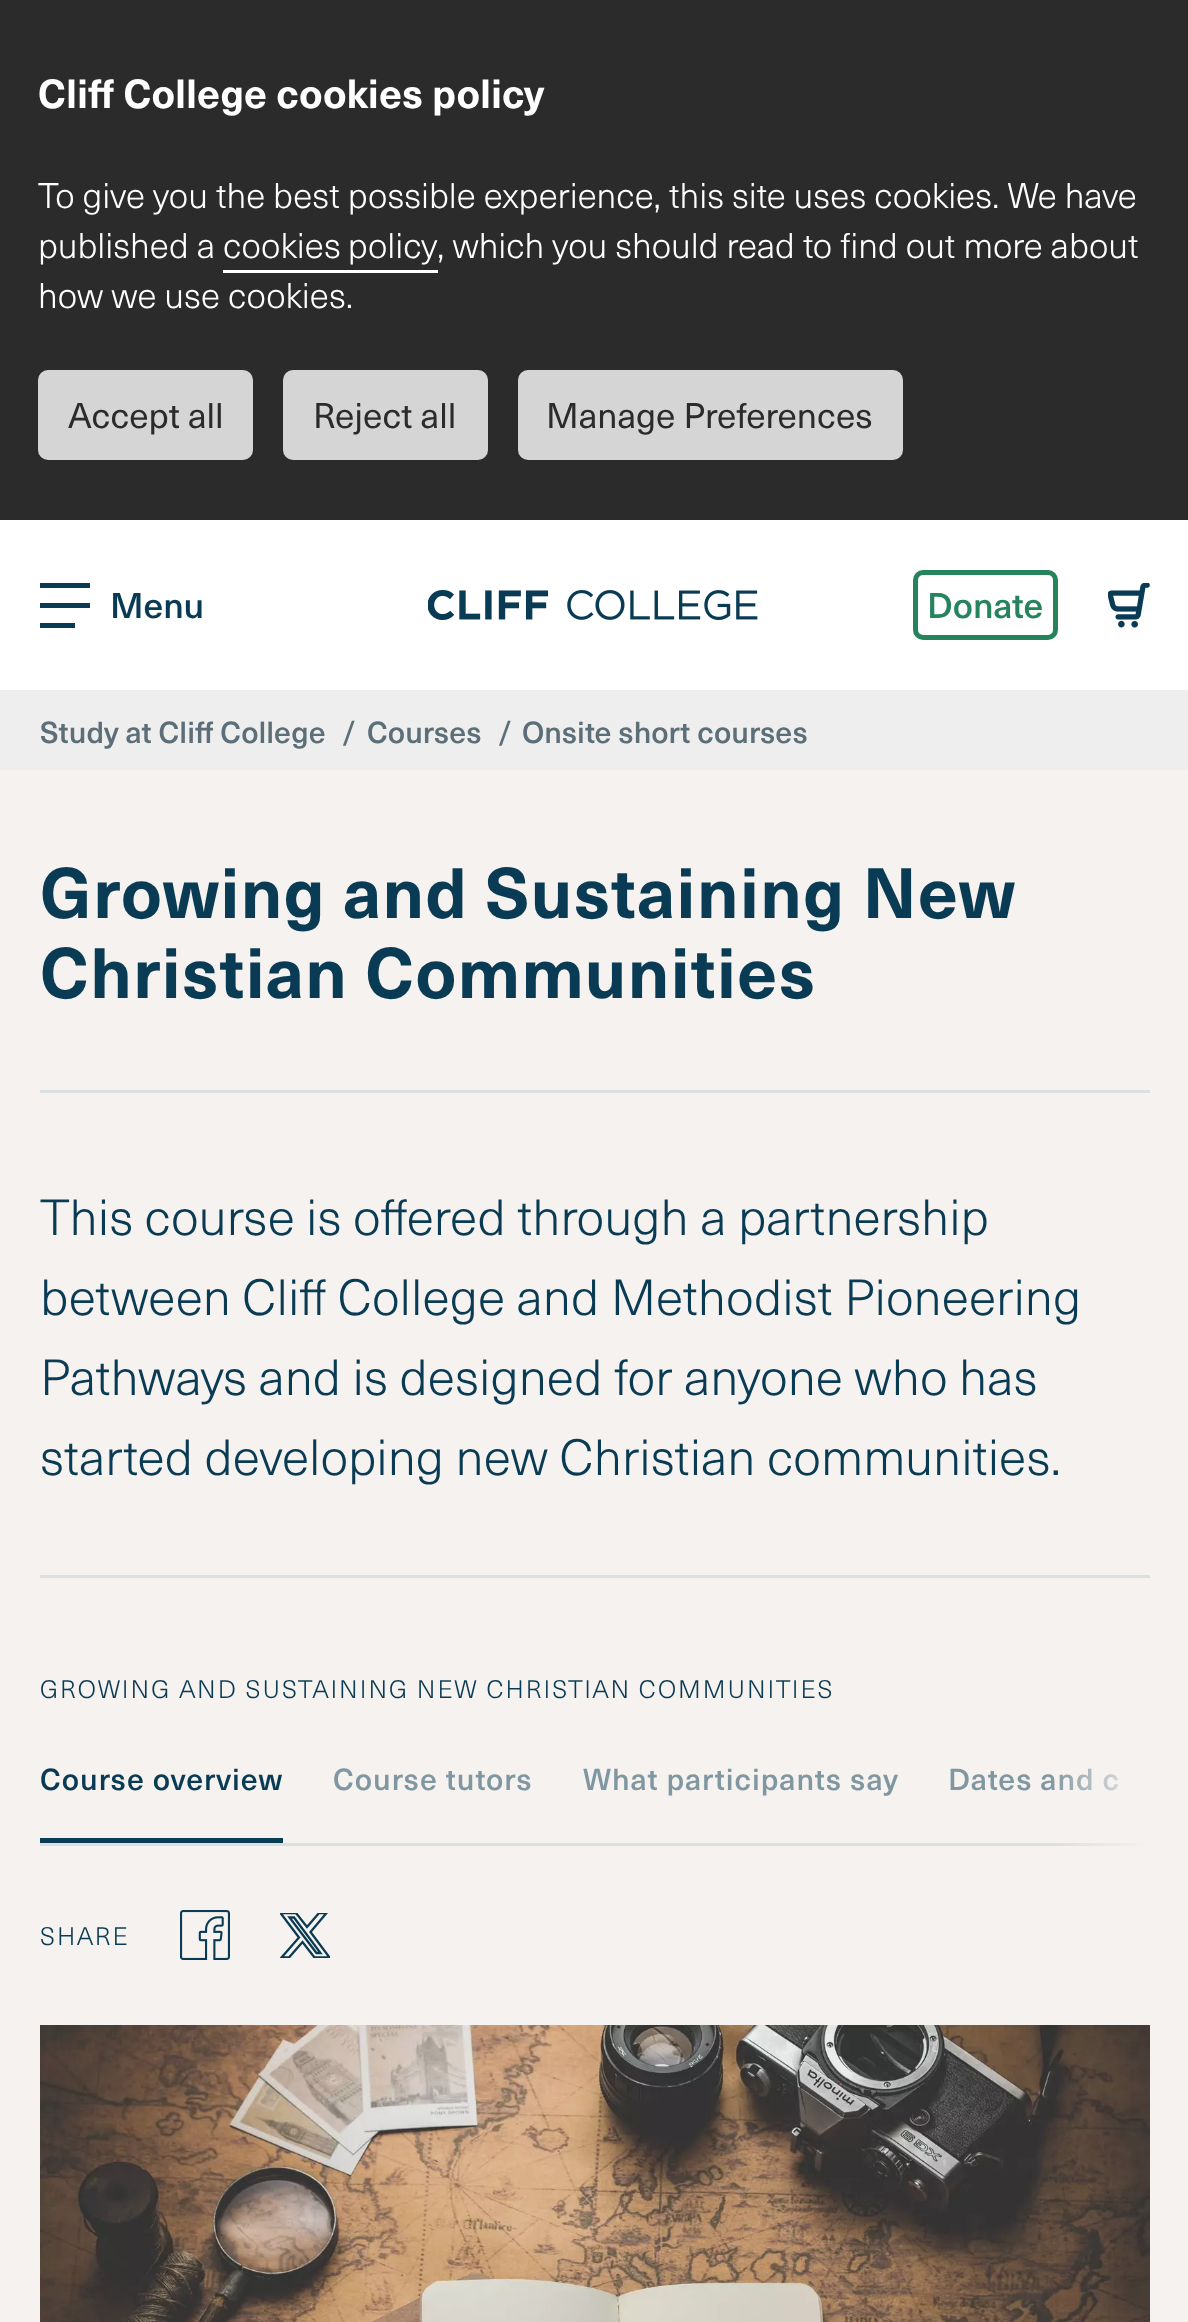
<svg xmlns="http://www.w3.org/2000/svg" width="1188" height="2322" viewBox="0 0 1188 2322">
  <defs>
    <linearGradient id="g1" gradientUnits="userSpaceOnUse" x1="1150" y1="1809" x2="1050" y2="1809"><stop offset="0" stop-color="rgb(246,242,239)"/><stop offset="1" stop-color="rgb(246,242,239)" stop-opacity="0"/></linearGradient>
    <clipPath id="clip1"><rect x="280" y="1913" width="50" height="45"/></clipPath>
  </defs>
  <rect width="100%" height="100%" fill="rgb(246,242,239)"/>
  <rect x="0" y="520" width="1188" height="170" fill="rgb(255,255,255)"/>
  <rect x="0" y="0" width="1188" height="520" fill="rgb(43,43,43)"/>
  <text x="38" y="108" font-family="'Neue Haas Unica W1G'" font-size="40" font-weight="bold" fill="rgb(255,255,255)">Cliff College cookies policy</text>
  <g font-family="'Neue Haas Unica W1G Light'" font-size="35" font-weight="300" fill="rgb(255,255,255)">
    <text>
      <tspan x="38" y="208">To give you the best possible experience, this site uses cookies. We have</tspan>
      <tspan x="38" y="258">published a</tspan>
    </text>
    <text x="223" y="258" word-spacing="-1">cookies policy</text>
  </g>
  <rect x="223" y="270" width="215" height="3" fill="rgb(255,255,255)"/>
  <g font-family="'Neue Haas Unica W1G Light'" font-size="35" font-weight="300" fill="rgb(255,255,255)">
    <text x="437" y="258">, which you should read to find out more about</text>
    <text x="38" y="308">how we use cookies.</text>
  </g>
  <rect x="38" y="370" width="215" height="90" rx="10" fill="rgb(213,213,213)"/>
  <text x="68" y="428" font-family="'Neue Haas Unica W1G'" font-size="35" fill="rgb(43,43,43)">Accept all</text>
  <rect x="283" y="370" width="205" height="90" rx="10" fill="rgb(213,213,213)"/>
  <text x="313" y="428" font-family="'Neue Haas Unica W1G'" font-size="35" fill="rgb(43,43,43)">Reject all</text>
  <rect x="518" y="370" width="385" height="90" rx="10" fill="rgb(213,213,213)"/>
  <text x="546" y="428" font-family="'Neue Haas Unica W1G'" font-size="35" fill="rgb(43,43,43)">Manage Preferences</text>
  <rect x="40" y="603" width="50" height="5" fill="rgb(10,59,84)"/>
  <rect x="40" y="583" width="50" height="5" fill="rgb(10,59,84)"/>
  <rect x="40" y="623" width="35" height="5" fill="rgb(10,59,84)"/>
  <text x="110" y="618" font-family="'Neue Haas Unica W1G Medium'" font-size="35" font-weight="500" fill="rgb(10,59,84)">Menu</text>
  <image x="428" y="590" width="330" height="30" href="pic1.png"/>
  <rect x="915.5" y="572.5" width="140" height="65" rx="7.5" fill="none" stroke="rgb(38,132,93)" stroke-width="5"/>
  <text x="927" y="618" font-family="'Neue Haas Unica W1G Medium'" font-size="35" font-weight="500" fill="rgb(38,132,93)">Donate</text>
  <image x="1108" y="583" width="42" height="45" href="pic2.png"/>
  <rect x="0" y="690" width="1188" height="80" fill="rgb(238,238,238)"/>
  <g font-family="'Neue Haas Unica W1G Medium'" font-size="30" font-weight="500" fill="rgb(92,110,120)">
    <text x="40" y="743">Study at Cliff College</text>
    <text x="342" y="743">/</text>
    <text x="367" y="743">Courses</text>
    <text x="498" y="743">/</text>
    <text x="522" y="743">Onsite short courses</text>
  </g>
  <rect x="40" y="1575" width="1110" height="3" fill="rgb(218,223,225)"/>
  <g font-family="'Neue Haas Unica W1G'" font-size="70" font-weight="bold" letter-spacing="1" fill="rgb(10,59,84)">
    <text>
      <tspan x="40" y="918">Growing and Sustaining New</tspan>
      <tspan x="40" y="998">Christian Communities</tspan>
    </text>
  </g>
  <rect x="40" y="1090" width="1110" height="3" fill="rgb(218,223,225)"/>
  <g font-family="'Neue Haas Unica W1G Light'" font-size="50" font-weight="300" fill="rgb(10,59,84)">
    <text>
      <tspan x="40" y="1235">This course is offered through a partnership</tspan>
      <tspan x="40" y="1315">between Cliff College and Methodist Pioneering</tspan>
      <tspan x="40" y="1395">Pathways and is designed for anyone who has</tspan>
      <tspan x="40" y="1475">started developing new Christian communities.</tspan>
    </text>
  </g>
  <text x="40" y="1698" font-family="'Neue Haas Unica W1G Light'" font-size="25" font-weight="300" letter-spacing="2" fill="rgb(10,59,84)">GROWING AND SUSTAINING NEW CHRISTIAN COMMUNITIES</text>
  <rect x="40" y="1843" width="1110" height="3" fill="rgb(218,223,225)"/>
  <rect x="40" y="1838" width="243" height="5" fill="rgb(10,59,84)"/>
  <text x="40" y="1790" font-family="'Neue Haas Unica W1G Medium'" font-size="30" font-weight="500" letter-spacing="0.95" fill="rgb(10,59,84)">Course overview</text>
  <g font-family="'Neue Haas Unica W1G Medium'" font-size="30" font-weight="500" letter-spacing="0.95" fill="rgb(128,151,162)">
    <text x="333" y="1790">Course tutors</text>
    <text x="583" y="1790">What participants say</text>
    <text x="948" y="1790">Dates and c</text>
  </g>
  <rect x="1052" y="1768" width="98" height="78" fill="url(#g1)"/>
  <text x="40" y="1945" font-family="'Neue Haas Unica W1G Light'" font-size="25" font-weight="300" letter-spacing="2" fill="rgb(10,59,84)">SHARE</text>
  <image x="180" y="1910" width="50" height="50" href="pic3.png"/>
  <g clip-path="url(#clip1)">
    <path d="M319 1913H326.5L310.5 1932L329.5 1957.5H314.5L302.5 1942L289 1957.5H281.5L299 1937.5L280.5 1913H296L307 1927ZM316.5 1953H320.5L294 1917.5H289.5Z" fill="none" stroke="rgb(10,59,84)" stroke-width="2.3"/>
  </g>
  <image x="40" y="2025" width="1110" height="297" href="pic4.png"/>
</svg>
